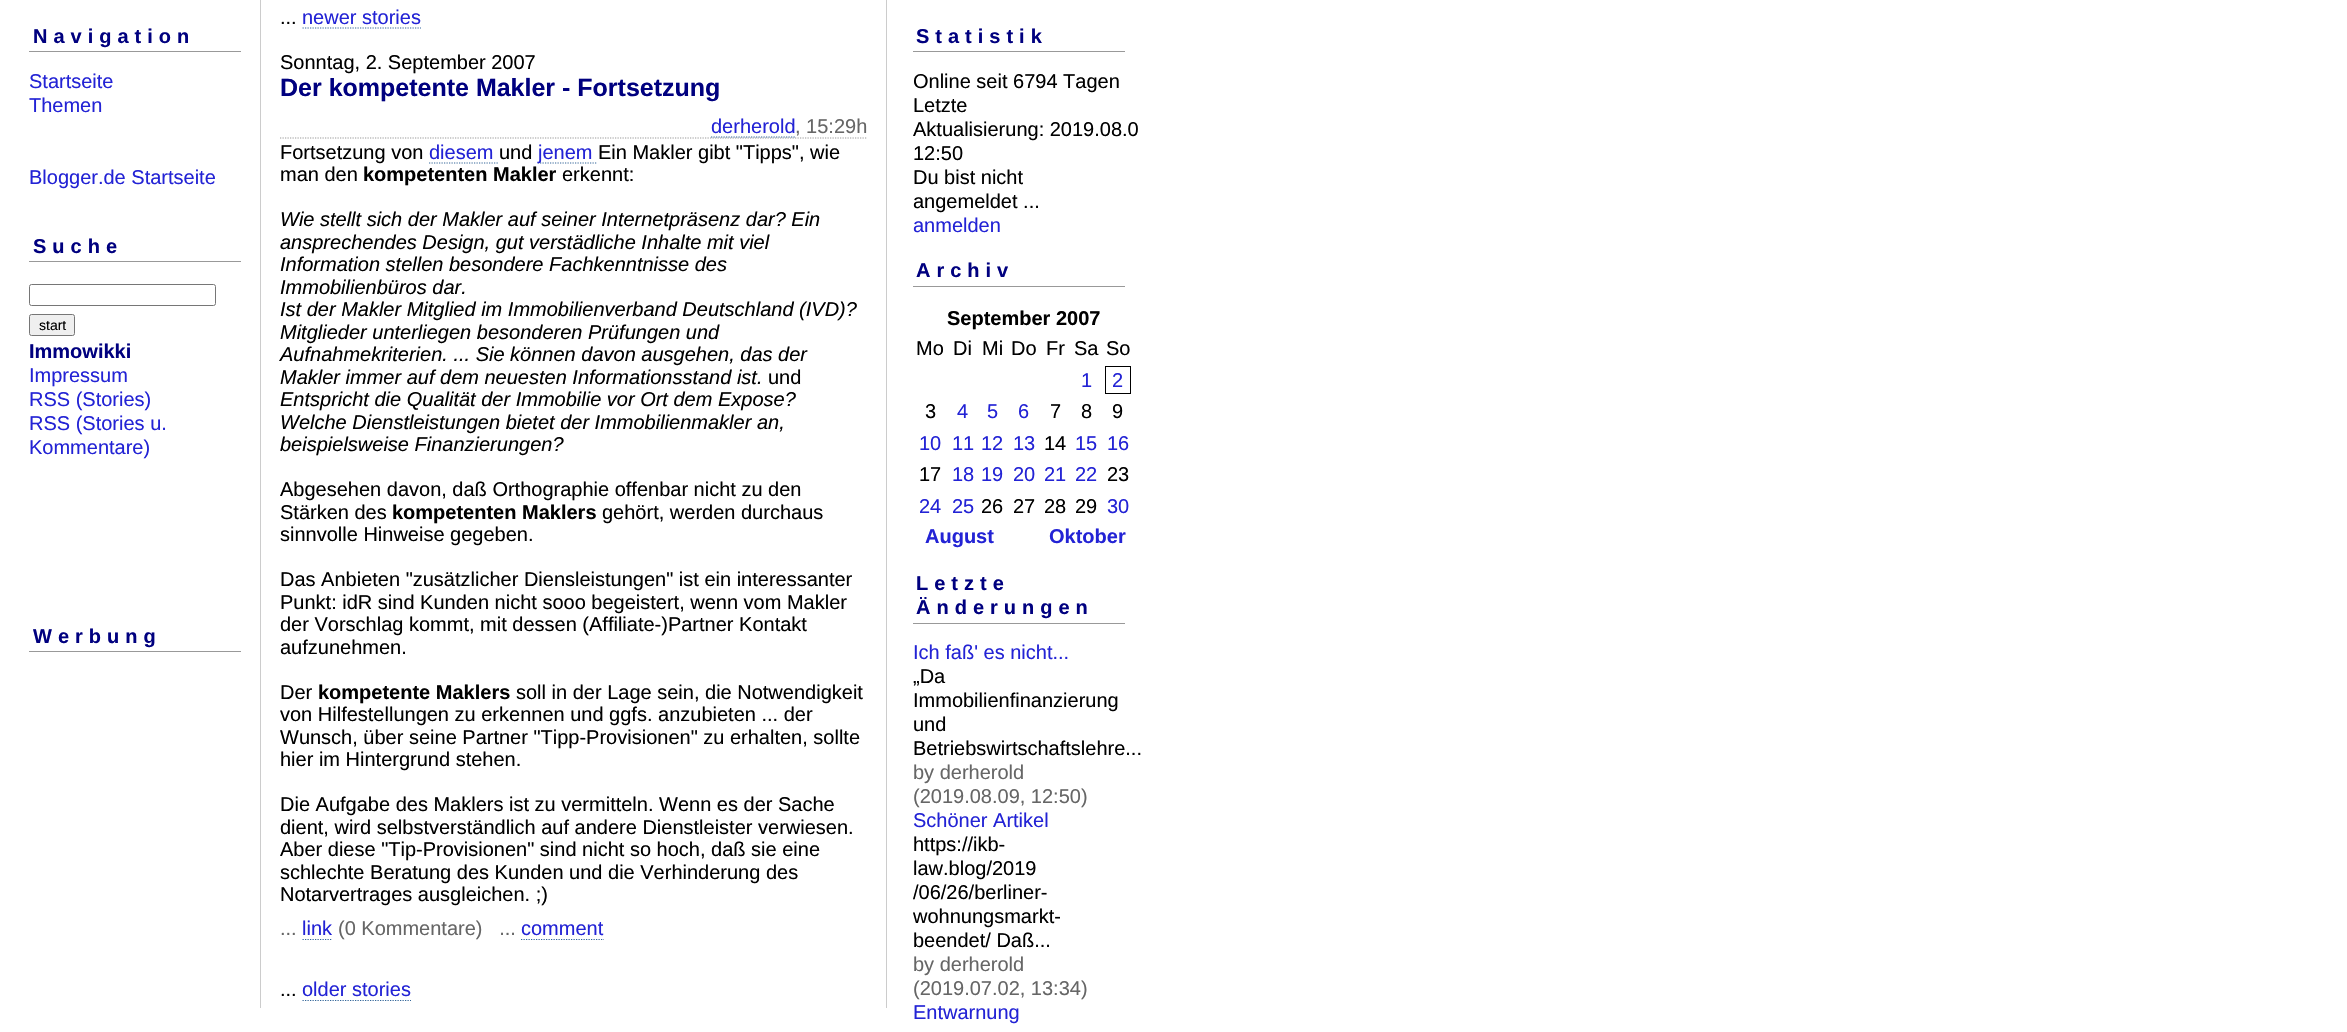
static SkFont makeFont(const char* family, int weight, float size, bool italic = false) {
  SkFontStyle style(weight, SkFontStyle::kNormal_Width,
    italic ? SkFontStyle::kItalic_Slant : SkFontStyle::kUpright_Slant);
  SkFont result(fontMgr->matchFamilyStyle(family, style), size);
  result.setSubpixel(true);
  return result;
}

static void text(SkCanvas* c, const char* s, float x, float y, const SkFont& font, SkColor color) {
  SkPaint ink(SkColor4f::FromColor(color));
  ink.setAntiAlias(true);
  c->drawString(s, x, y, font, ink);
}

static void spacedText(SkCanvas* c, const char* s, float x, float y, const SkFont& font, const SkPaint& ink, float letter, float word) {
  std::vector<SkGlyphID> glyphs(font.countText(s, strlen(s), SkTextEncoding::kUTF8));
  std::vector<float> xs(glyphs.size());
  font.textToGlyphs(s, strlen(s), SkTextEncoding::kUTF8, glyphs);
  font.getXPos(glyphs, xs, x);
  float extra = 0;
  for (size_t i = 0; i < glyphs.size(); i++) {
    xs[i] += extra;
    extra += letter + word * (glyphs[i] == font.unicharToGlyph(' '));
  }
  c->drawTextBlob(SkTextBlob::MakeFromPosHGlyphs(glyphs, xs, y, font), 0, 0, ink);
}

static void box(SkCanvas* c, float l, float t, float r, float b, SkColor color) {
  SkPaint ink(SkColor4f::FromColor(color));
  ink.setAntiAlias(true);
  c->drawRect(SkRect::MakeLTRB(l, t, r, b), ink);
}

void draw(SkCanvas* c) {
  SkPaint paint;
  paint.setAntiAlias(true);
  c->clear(0xffffffff);
  box(c, 29, 51, 241, 52, 0xff999999);
  SkFont face1 = makeFont("Liberation Sans", 700, 20);
  paint.setColor(0xff00007f);
  spacedText(c, "Navigation", 33, 43, face1, paint, 6, 0);
  SkFont face2 = makeFont("Liberation Sans", 400, 20);
  text(c, "Startseite", 29, 88, face2, 0xff2323d5);
  text(c, "Themen", 29, 112, face2, 0xff2323d5);
  text(c, "Blogger.de Startseite", 29, 184, face2, 0xff2323d5);
  box(c, 29, 261, 241, 262, 0xff999999);
  spacedText(c, "Suche", 33, 253, face1, paint, 6, 0);
  paint.setStyle(SkPaint::kStroke_Style);
  paint.setStrokeWidth(1);
  paint.setColor(0xff767676);
  c->drawRoundRect(SkRect::MakeLTRB(29.5f, 284.5f, 215.5f, 305.5f), 2, 2, paint);
  paint.setStyle(SkPaint::kFill_Style);
  paint.setColor(0xffefefef);
  c->drawRoundRect(SkRect::MakeLTRB(29.5f, 314.5f, 74.5f, 335.5f), 2, 2, paint);
  paint.setStyle(SkPaint::kStroke_Style);
  paint.setColor(0xff767676);
  c->drawRoundRect(SkRect::MakeLTRB(29.5f, 314.5f, 74.5f, 335.5f), 2, 2, paint);
  SkFont face3 = makeFont("Liberation Sans", 400, 14);
  text(c, "start", 39, 330, face3, 0xff000000);
  text(c, "Immowikki", 29, 358, face1, 0xff00007f);
  text(c, "Impressum", 29, 382, face2, 0xff2323d5);
  text(c, "RSS (Stories)", 29, 406, face2, 0xff2323d5);
  text(c, "RSS (Stories u.", 29, 430, face2, 0xff2323d5);
  text(c, "Kommentare)", 29, 454, face2, 0xff2323d5);
  box(c, 29, 651, 241, 652, 0xff999999);
  paint.setStyle(SkPaint::kFill_Style);
  paint.setColor(0xff00007f);
  spacedText(c, "Werbung", 33, 643, face1, paint, 6, 0);
  box(c, 886, 0, 887, 1008, 0xffcccccc);
  box(c, 260, 0, 261, 1008, 0xffcccccc);
  text(c, "...", 280, 24, face2, 0xff000000);
  text(c, "newer stories", 302, 24, face2, 0xff2323d5);
  paint.setStyle(SkPaint::kStroke_Style);
  paint.setStrokeWidth(1.2f);
  paint.setColor(0xff336699);
  paint.setPathEffect(SkDashPathEffect::Make({{1.25f, 1.25f}}, 0));
  c->drawPath(SkPathBuilder().moveTo(302.5f, 28).lineTo(421, 28).detach(), paint);
  paint.setPathEffect(nullptr);
  text(c, "Sonntag, 2. September 2007", 280, 69, face2, 0xff000000);
  SkFont face4 = makeFont("Liberation Sans", 700, 25);
  text(c, "Der kompetente Makler - Fortsetzung", 280, 96, face4, 0xff00007f);
  paint.setColor(0xff999999);
  paint.setPathEffect(SkDashPathEffect::Make({{1.25f, 1.25f}}, 0));
  c->drawPath(SkPathBuilder().moveTo(280, 138).lineTo(867.5f, 138).detach(), paint);
  paint.setPathEffect(nullptr);
  text(c, "derherold", 711, 133, face2, 0xff2323d5);
  paint.setColor(0xff336699);
  paint.setPathEffect(SkDashPathEffect::Make({{1.25f, 1.25f}}, 0));
  c->drawPath(SkPathBuilder().moveTo(711, 137).lineTo(795, 137).detach(), paint);
  paint.setPathEffect(nullptr);
  text(c, ", 15:29h", 795, 133, face2, 0xff666666);
  text(c, "Fortsetzung von", 280, 159, face2, 0xff000000);
  text(c, "diesem", 429, 159, face2, 0xff2323d5);
  paint.setPathEffect(SkDashPathEffect::Make({{1.25f, 1.25f}}, 0));
  c->drawPath(SkPathBuilder().moveTo(429, 163).lineTo(499, 163).detach(), paint);
  paint.setPathEffect(nullptr);
  text(c, "und", 499, 159, face2, 0xff000000);
  paint.setPathEffect(SkDashPathEffect::Make({{1.25f, 1.25f}}, 0));
  c->drawPath(SkPathBuilder().moveTo(537.5f, 163).lineTo(597.5f, 163).detach(), paint);
  paint.setPathEffect(nullptr);
  text(c, "jenem", 538, 159, face2, 0xff2323d5);
  text(c, "Ein Makler gibt \"Tipps\", wie", 598, 159, face2, 0xff000000);
  text(c, "man den", 280, 181, face2, 0xff000000);
  text(c, "kompetenten Makler", 363, 181, face1, 0xff000000);
  text(c, "erkennt:", 562, 181, face2, 0xff000000);
  SkFont face5 = makeFont("Liberation Sans", 400, 20, true);
  text(c, "Wie stellt sich der Makler auf seiner Internetpräsenz dar? Ein", 280, 226, face5, 0xff000000);
  text(c, "ansprechendes Design, gut verstädliche Inhalte mit viel", 280, 249, face5, 0xff000000);
  text(c, "Information stellen besondere Fachkenntnisse des", 280, 271, face5, 0xff000000);
  text(c, "Immobilienbüros dar.", 280, 294, face5, 0xff000000);
  text(c, "Ist der Makler Mitglied im Immobilienverband Deutschland (IVD)?", 280, 316, face5, 0xff000000);
  text(c, "Mitglieder unterliegen besonderen Prüfungen und", 280, 339, face5, 0xff000000);
  text(c, "Aufnahmekriterien. ... Sie können davon ausgehen, das der", 280, 361, face5, 0xff000000);
  text(c, "Makler immer auf dem neuesten Informationsstand ist.", 280, 384, face5, 0xff000000);
  text(c, "und", 768, 384, face2, 0xff000000);
  text(c, "Entspricht die Qualität der Immobilie vor Ort dem Expose?", 280, 406, face5, 0xff000000);
  text(c, "Welche Dienstleistungen bietet der Immobilienmakler an,", 280, 429, face5, 0xff000000);
  text(c, "beispielsweise Finanzierungen?", 280, 451, face5, 0xff000000);
  text(c, "Abgesehen davon, daß Orthographie offenbar nicht zu den", 280, 496, face2, 0xff000000);
  text(c, "Stärken des", 280, 519, face2, 0xff000000);
  text(c, "kompetenten Maklers", 392, 519, face1, 0xff000000);
  text(c, "gehört, werden durchaus", 602, 519, face2, 0xff000000);
  text(c, "sinnvolle Hinweise gegeben.", 280, 541, face2, 0xff000000);
  text(c, "Das Anbieten \"zusätzlicher Diensleistungen\" ist ein interessanter", 280, 586, face2, 0xff000000);
  text(c, "Punkt: idR sind Kunden nicht sooo begeistert, wenn vom Makler", 280, 609, face2, 0xff000000);
  text(c, "der Vorschlag kommt, mit dessen (Affiliate-)Partner Kontakt", 280, 631, face2, 0xff000000);
  text(c, "aufzunehmen.", 280, 654, face2, 0xff000000);
  text(c, "Der", 280, 699, face2, 0xff000000);
  text(c, "kompetente Maklers", 318, 699, face1, 0xff000000);
  text(c, "soll in der Lage sein, die Notwendigkeit", 516, 699, face2, 0xff000000);
  text(c, "von Hilfestellungen zu erkennen und ggfs. anzubieten ... der", 280, 721, face2, 0xff000000);
  text(c, "Wunsch, über seine Partner \"Tipp-Provisionen\" zu erhalten, sollte", 280, 744, face2, 0xff000000);
  text(c, "hier im Hintergrund stehen.", 280, 766, face2, 0xff000000);
  text(c, "Die Aufgabe des Maklers ist zu vermitteln. Wenn es der Sache", 280, 811, face2, 0xff000000);
  text(c, "dient, wird selbstverständlich auf andere Dienstleister verwiesen.", 280, 834, face2, 0xff000000);
  text(c, "Aber diese \"Tip-Provisionen\" sind nicht so hoch, daß sie eine", 280, 856, face2, 0xff000000);
  text(c, "schlechte Beratung des Kunden und die Verhinderung des", 280, 879, face2, 0xff000000);
  text(c, "Notarvertrages ausgleichen. ;)", 280, 901, face2, 0xff000000);
  text(c, "...", 280, 935, face2, 0xff666666);
  text(c, "link", 302, 935, face2, 0xff2323d5);
  paint.setPathEffect(SkDashPathEffect::Make({{1.25f, 1.25f}}, 0));
  c->drawPath(SkPathBuilder().moveTo(302.5f, 939.5f).lineTo(332.5f, 939.5f).detach(), paint);
  paint.setPathEffect(nullptr);
  text(c, "(0 Kommentare)   ...", 338, 935, face2, 0xff666666);
  text(c, "comment", 521, 935, face2, 0xff2323d5);
  paint.setPathEffect(SkDashPathEffect::Make({{1.25f, 1.25f}}, 0));
  c->drawPath(SkPathBuilder().moveTo(521, 939.5f).lineTo(604, 939.5f).detach(), paint);
  paint.setPathEffect(nullptr);
  text(c, "...", 280, 996, face2, 0xff000000);
  text(c, "older stories", 302, 996, face2, 0xff2323d5);
  paint.setPathEffect(SkDashPathEffect::Make({{1.25f, 1.25f}}, 0));
  c->drawPath(SkPathBuilder().moveTo(302.5f, 1000.5f).lineTo(411, 1000.5f).detach(), paint);
  paint.setPathEffect(nullptr);
  box(c, 913, 51, 1125, 52, 0xff999999);
  paint.setStyle(SkPaint::kFill_Style);
  paint.setColor(0xff00007f);
  spacedText(c, "Statistik", 916, 43, face1, paint, 6, 0);
  text(c, "Online seit 6794 Tagen", 913, 88, face2, 0xff000000);
  text(c, "Letzte", 913, 112, face2, 0xff000000);
  text(c, "Aktualisierung: 2019.08.0", 913, 136, face2, 0xff000000);
  text(c, "12:50", 913, 160, face2, 0xff000000);
  text(c, "Du bist nicht", 913, 184, face2, 0xff000000);
  text(c, "angemeldet ...", 913, 208, face2, 0xff000000);
  text(c, "anmelden", 913, 232, face2, 0xff2323d5);
  box(c, 913, 286, 1125, 287, 0xff999999);
  spacedText(c, "Archiv", 916, 277, face1, paint, 6, 0);
  text(c, "September 2007", 947, 325, face1, 0xff000000);
  text(c, "Mo", 916, 355, face2, 0xff000000);
  text(c, "Di", 953, 355, face2, 0xff000000);
  text(c, "Mi", 982, 355, face2, 0xff000000);
  text(c, "Do", 1011, 355, face2, 0xff000000);
  text(c, "Fr", 1046, 355, face2, 0xff000000);
  text(c, "Sa", 1074, 355, face2, 0xff000000);
  text(c, "So", 1106, 355, face2, 0xff000000);
  text(c, "1", 1081, 387, face2, 0xff2323d5);
  paint.setStyle(SkPaint::kStroke_Style);
  paint.setStrokeWidth(1);
  paint.setColor(0xff000000);
  c->drawRect(SkRect::MakeLTRB(1105.5f, 366.5f, 1130.5f, 393.5f), paint);
  text(c, "2", 1112, 387, face2, 0xff2323d5);
  text(c, "3", 925, 418, face2, 0xff000000);
  text(c, "4", 957, 418, face2, 0xff2323d5);
  text(c, "5", 987, 418, face2, 0xff2323d5);
  text(c, "6", 1018, 418, face2, 0xff2323d5);
  text(c, "7", 1050, 418, face2, 0xff000000);
  text(c, "8", 1081, 418, face2, 0xff000000);
  text(c, "9", 1112, 418, face2, 0xff000000);
  text(c, "10", 919, 450, face2, 0xff2323d5);
  text(c, "11", 952, 450, face2, 0xff2323d5);
  text(c, "12", 981, 450, face2, 0xff2323d5);
  text(c, "13", 1013, 450, face2, 0xff2323d5);
  text(c, "14", 1044, 450, face2, 0xff000000);
  text(c, "15", 1075, 450, face2, 0xff2323d5);
  text(c, "16", 1107, 450, face2, 0xff2323d5);
  text(c, "17", 919, 481, face2, 0xff000000);
  text(c, "18", 952, 481, face2, 0xff2323d5);
  text(c, "19", 981, 481, face2, 0xff2323d5);
  text(c, "20", 1013, 481, face2, 0xff2323d5);
  text(c, "21", 1044, 481, face2, 0xff2323d5);
  text(c, "22", 1075, 481, face2, 0xff2323d5);
  text(c, "23", 1107, 481, face2, 0xff000000);
  text(c, "24", 919, 513, face2, 0xff2323d5);
  text(c, "25", 952, 513, face2, 0xff2323d5);
  text(c, "26", 981, 513, face2, 0xff000000);
  text(c, "27", 1013, 513, face2, 0xff000000);
  text(c, "28", 1044, 513, face2, 0xff000000);
  text(c, "29", 1075, 513, face2, 0xff000000);
  text(c, "30", 1107, 513, face2, 0xff2323d5);
  text(c, "August", 925, 543, face1, 0xff2323d5);
  text(c, "Oktober", 1049, 543, face1, 0xff2323d5);
  box(c, 913, 623, 1125, 624, 0xff999999);
  paint.setStyle(SkPaint::kFill_Style);
  paint.setColor(0xff00007f);
  spacedText(c, "Letzte", 916, 590, face1, paint, 6, 0);
  spacedText(c, "Änderungen", 916, 614, face1, paint, 6, 0);
  text(c, "Ich faß' es nicht...", 913, 659, face2, 0xff2323d5);
  text(c, "„Da", 913, 683, face2, 0xff000000);
  text(c, "Immobilienfinanzierung", 913, 707, face2, 0xff000000);
  text(c, "und", 913, 731, face2, 0xff000000);
  text(c, "Betriebswirtschaftslehre...", 913, 755, face2, 0xff000000);
  text(c, "by derherold", 913, 779, face2, 0xff666666);
  text(c, "(2019.08.09, 12:50)", 913, 803, face2, 0xff666666);
  text(c, "Schöner Artikel", 913, 827, face2, 0xff2323d5);
  text(c, "https://ikb-", 913, 851, face2, 0xff000000);
  text(c, "law.blog/2019", 913, 875, face2, 0xff000000);
  text(c, "/06/26/berliner-", 913, 899, face2, 0xff000000);
  text(c, "wohnungsmarkt-", 913, 923, face2, 0xff000000);
  text(c, "beendet/ Daß...", 913, 947, face2, 0xff000000);
  text(c, "by derherold", 913, 971, face2, 0xff666666);
  text(c, "(2019.07.02, 13:34)", 913, 995, face2, 0xff666666);
  text(c, "Entwarnung", 913, 1019, face2, 0xff2323d5);
}
